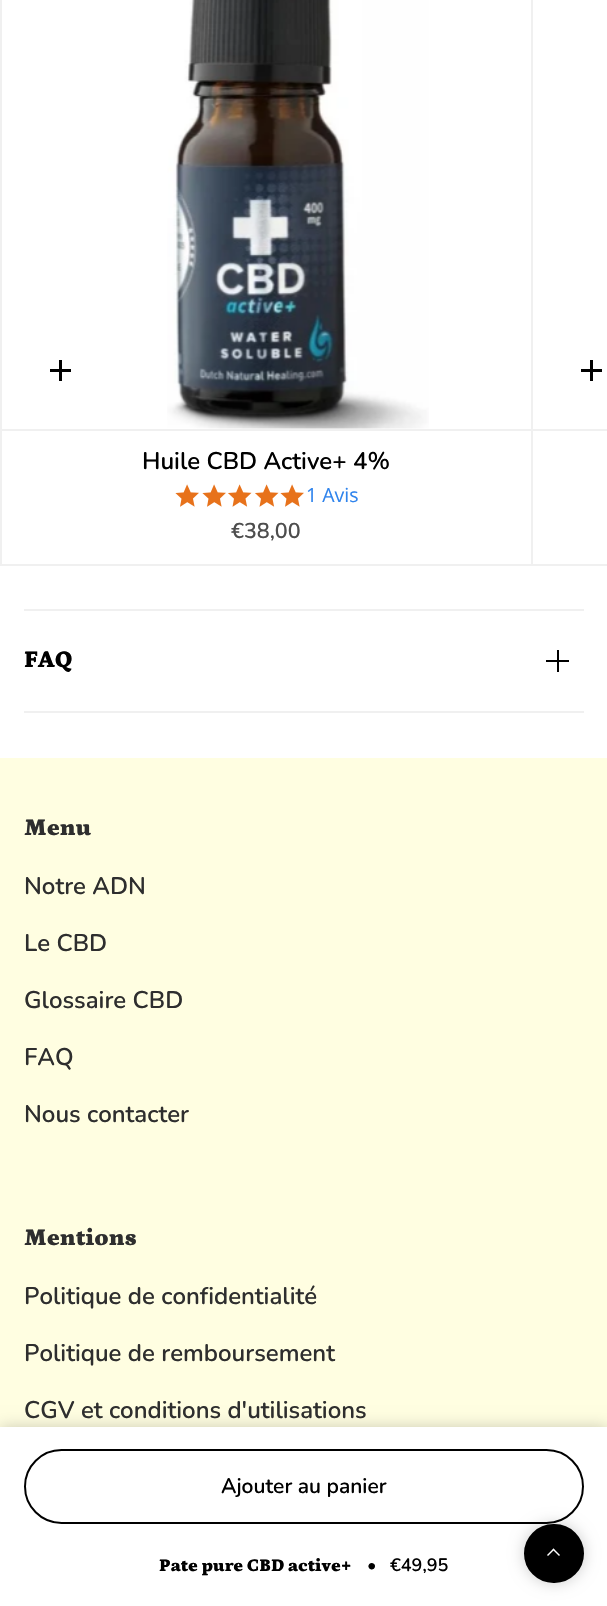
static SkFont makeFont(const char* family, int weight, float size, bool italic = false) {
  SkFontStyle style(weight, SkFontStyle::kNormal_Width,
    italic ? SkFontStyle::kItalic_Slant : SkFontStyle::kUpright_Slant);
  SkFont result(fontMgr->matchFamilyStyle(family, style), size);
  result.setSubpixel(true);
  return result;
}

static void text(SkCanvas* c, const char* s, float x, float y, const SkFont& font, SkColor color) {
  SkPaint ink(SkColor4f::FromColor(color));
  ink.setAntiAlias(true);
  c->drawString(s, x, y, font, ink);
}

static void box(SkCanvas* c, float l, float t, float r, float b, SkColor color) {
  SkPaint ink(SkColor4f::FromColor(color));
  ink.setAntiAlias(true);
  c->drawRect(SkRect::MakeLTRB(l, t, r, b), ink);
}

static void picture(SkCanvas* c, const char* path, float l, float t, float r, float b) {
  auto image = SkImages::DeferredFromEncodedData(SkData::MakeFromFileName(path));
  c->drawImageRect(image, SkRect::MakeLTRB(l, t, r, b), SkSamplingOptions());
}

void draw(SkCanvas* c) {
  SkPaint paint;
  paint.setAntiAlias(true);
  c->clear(0xffffffff);
  box(c, 533, 429, 607, 431, 0xfff0f0f0);
  box(c, 581, 369, 602, 372, 0xff000000);
  box(c, 590, 360, 593, 381, 0xff000000);
  box(c, 531, 0, 533, 566, 0xfff0f0f0);
  box(c, 2, 564, 607, 566, 0xfff0f0f0);
  box(c, 0, 0, 2, 566, 0xfff0f0f0);
  box(c, 2, 429, 531, 431, 0xfff0f0f0);
  box(c, 50, 369, 71, 372, 0xff000000);
  box(c, 59, 360, 62, 381, 0xff000000);
  picture(c, "img_01.png", 167, 0, 429, 429);
  SkFont face1 = makeFont("Nunito", 600, 24);
  text(c, "Huile CBD Active+ 4%", 142, 469, face1, 0xff000000);
  picture(c, "img_02.png", 175, 484, 199, 507);
  picture(c, "img_02.png", 202, 484, 226, 507);
  picture(c, "img_03.png", 228, 484, 252, 507);
  picture(c, "img_03.png", 255, 484, 279, 507);
  picture(c, "img_02.png", 280, 484, 304, 507);
  SkFont face2 = makeFont("Open Sans", 400, 19.5f);
  text(c, "1 Avis", 306, 502, face2, 0xff2f84ed);
  SkFont face3 = makeFont("Nunito", 600, 21.5f);
  text(c, "€38,00", 231, 538, face3, 0xff4d4d4d);
  box(c, 24, 609, 584, 611, 0xfff0f0f0);
  box(c, 24, 711, 584, 713, 0xfff0f0f0);
  SkFont face4 = makeFont("Petrona", 900, 24);
  text(c, "FAQ", 24, 667, face4, 0xff000000);
  box(c, 546, 660, 569, 662, 0xff000000);
  box(c, 557, 650, 559, 672, 0xff000000);
  box(c, 0, 758, 607, 1427, 0xfffffee1);
  paint.setColor(0x33000000);
  paint.setMaskFilter(SkMaskFilter::MakeBlur(kNormal_SkBlurStyle, 7.5f));
  c->drawRect(SkRect::MakeLTRB(0, 1427, 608, 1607), paint);
  paint.setMaskFilter(nullptr);
  box(c, 0, 1427, 607, 1606, 0xffffffff);
  paint.setStyle(SkPaint::kStroke_Style);
  paint.setStrokeWidth(2);
  paint.setColor(0xff000000);
  c->drawRoundRect(SkRect::MakeLTRB(25, 1450, 583, 1523), 36.5f, 36.5f, paint);
  SkFont face5 = makeFont("Nunito", 600, 21);
  text(c, "Ajouter au panier", 221, 1493, face5, 0xff000000);
  SkFont face6 = makeFont("Petrona", 900, 18);
  text(c, "Pate pure CBD active+", 159, 1571, face6, 0xff000000);
  SkFont face7 = makeFont("Nunito", 600, 18);
  text(c, "•", 367, 1571, face7, 0xff000000);
  text(c, "€49,95", 390, 1571, face7, 0xff000000);
  text(c, "Menu", 24, 835, face4, 0xff2e2e2e);
  text(c, "Notre ADN", 24, 894, face1, 0xff2e2e2e);
  text(c, "Le CBD", 24, 951, face1, 0xff2e2e2e);
  text(c, "Glossaire CBD", 24, 1008, face1, 0xff2e2e2e);
  text(c, "FAQ", 24, 1065, face1, 0xff2e2e2e);
  text(c, "Nous contacter", 24, 1122, face1, 0xff2e2e2e);
  text(c, "Mentions", 24, 1245, face4, 0xff2e2e2e);
  text(c, "Politique de confidentialité", 24, 1304, face1, 0xff2e2e2e);
  text(c, "Politique de remboursement", 24, 1361, face1, 0xff2e2e2e);
  text(c, "CGV et conditions d'utilisations", 24, 1418, face1, 0xff2e2e2e);
  paint.setStyle(SkPaint::kFill_Style);
  paint.setColor(0x33000000);
  paint.setMaskFilter(SkMaskFilter::MakeBlur(kNormal_SkBlurStyle, 7.5f));
  c->drawRoundRect(SkRect::MakeLTRB(524, 1524, 584, 1583), 29.5f, 29.5f, paint);
  paint.setMaskFilter(nullptr);
  paint.setColor(0xff000000);
  c->drawRoundRect(SkRect::MakeLTRB(525, 1525, 583, 1582), 28.5f, 28.5f, paint);
  paint.setStyle(SkPaint::kStroke_Style);
  c->drawRoundRect(SkRect::MakeLTRB(525, 1525, 583, 1582), 28.5f, 28.5f, paint);
  paint.setStyle(SkPaint::kFill_Style);
  paint.setColor(0xffffffff);
  c->drawPath(SkPathBuilder().moveTo(554.5f, 1549.5f).lineTo(548, 1556).lineTo(547, 1555).lineTo(553.5f, 1548.5f).close().detach(), paint);
  c->drawPath(SkPathBuilder().moveTo(560, 1555).lineTo(559, 1556).lineTo(552.5f, 1549.5f).lineTo(553.5f, 1548.5f).close().detach(), paint);
}
